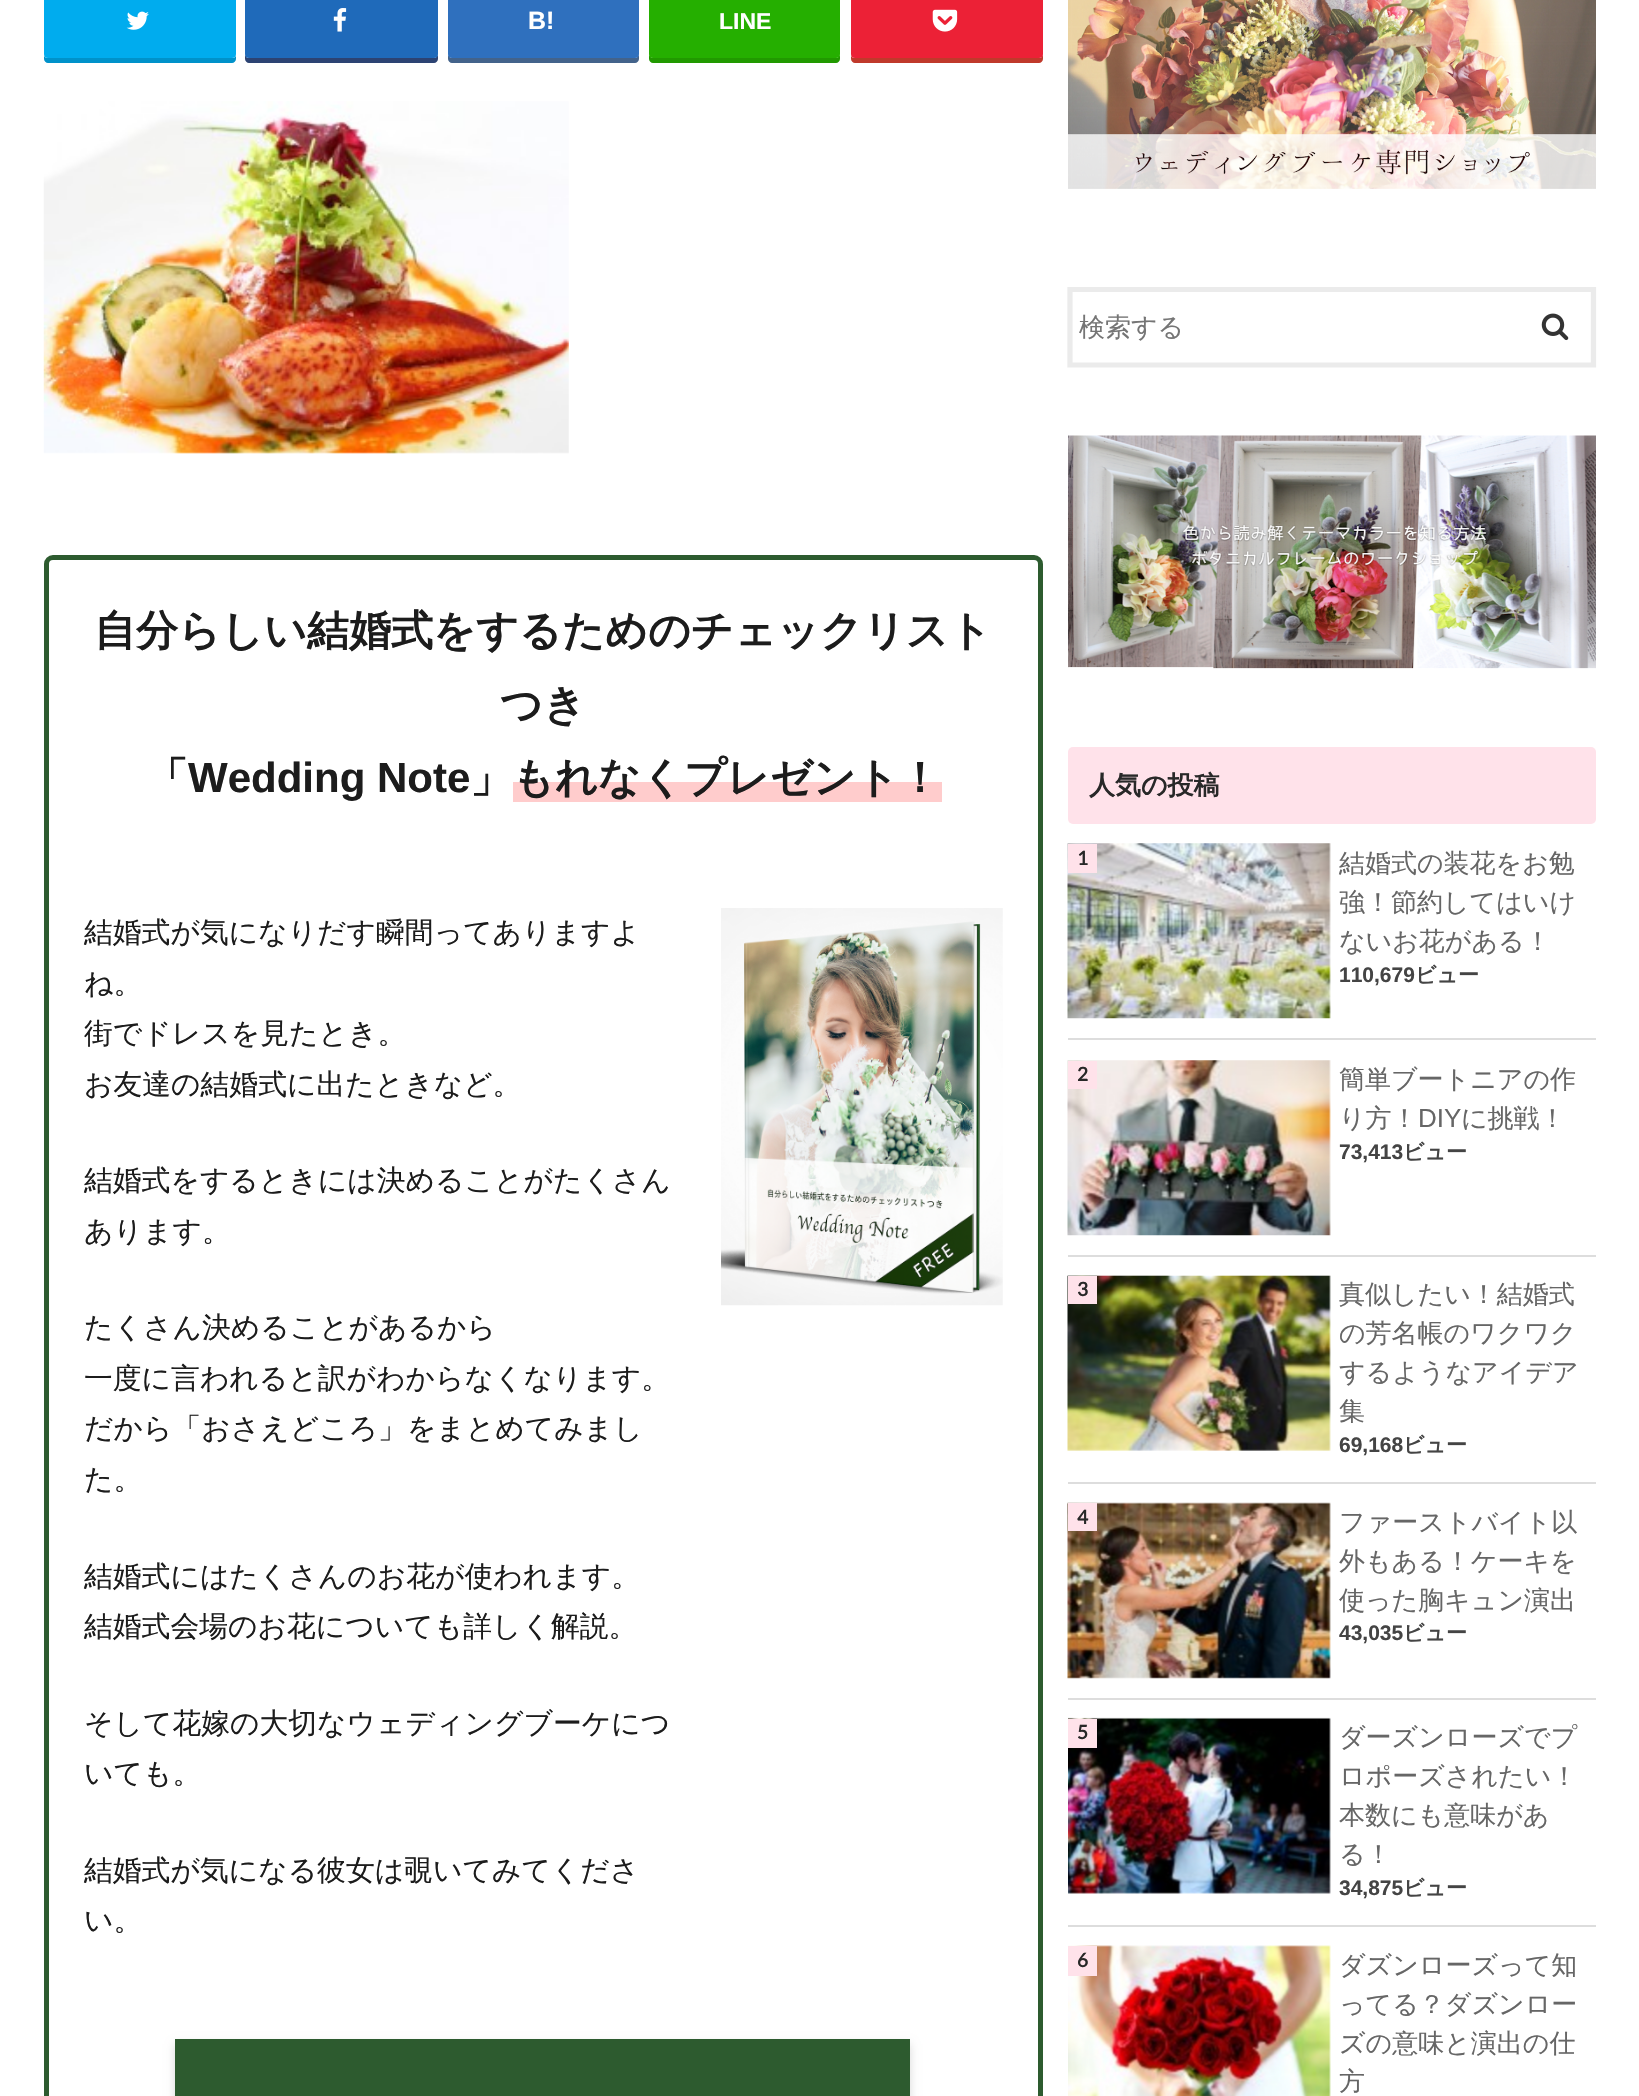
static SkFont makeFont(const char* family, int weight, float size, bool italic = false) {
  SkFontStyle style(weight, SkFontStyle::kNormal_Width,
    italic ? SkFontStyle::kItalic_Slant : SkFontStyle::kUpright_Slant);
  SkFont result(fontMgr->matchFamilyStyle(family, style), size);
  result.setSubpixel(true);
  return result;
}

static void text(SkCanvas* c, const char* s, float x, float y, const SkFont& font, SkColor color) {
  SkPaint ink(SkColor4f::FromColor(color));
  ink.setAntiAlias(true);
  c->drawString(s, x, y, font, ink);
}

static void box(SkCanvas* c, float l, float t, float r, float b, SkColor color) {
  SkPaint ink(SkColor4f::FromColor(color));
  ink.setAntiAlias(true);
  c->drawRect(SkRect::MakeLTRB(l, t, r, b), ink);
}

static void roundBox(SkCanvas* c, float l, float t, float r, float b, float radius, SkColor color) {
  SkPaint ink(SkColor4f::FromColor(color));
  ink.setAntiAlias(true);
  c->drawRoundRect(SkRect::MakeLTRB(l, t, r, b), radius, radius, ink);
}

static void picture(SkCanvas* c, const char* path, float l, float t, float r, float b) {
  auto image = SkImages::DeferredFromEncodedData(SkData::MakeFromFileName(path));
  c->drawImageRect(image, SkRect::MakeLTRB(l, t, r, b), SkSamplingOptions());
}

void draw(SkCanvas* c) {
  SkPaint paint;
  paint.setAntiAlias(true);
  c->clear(0xffffffff);
  paint.setColor(0xff0092ca);
  c->drawPath(SkPathBuilder().moveTo(44, 56).lineTo(44, 59).cubicTo(44, 61, 46, 63, 48, 63).lineTo(232, 63).cubicTo(234, 63, 236, 61, 236, 59).lineTo(236, 56).cubicTo(235, 57, 234, 58, 233, 58).lineTo(47, 58).cubicTo(46, 58, 45, 57, 44, 56).close().detach(), paint);
  roundBox(c, 44, -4, 236, 58, 4, 0xff00acee);
  picture(c, "img_01.png", 126, 11, 149, 30);
  paint.setColor(0xff2c4373);
  c->drawPath(SkPathBuilder().moveTo(245, 54).lineTo(245, 59).cubicTo(245, 61, 247, 63, 249, 63).lineTo(434, 63).cubicTo(436, 63, 438, 61, 438, 59).lineTo(438, -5).lineTo(438, -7).lineTo(438, 54).cubicTo(438, 56, 436, 58, 434, 58).lineTo(248, 58).cubicTo(247, 58, 245, 56, 245, 54).close().detach(), paint);
  roundBox(c, 245, -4, 438, 58, 4, 0xff1f6aba);
  picture(c, "img_02.png", 333, 8, 347, 32);
  paint.setColor(0xff43638b);
  c->drawPath(SkPathBuilder().moveTo(448, 54).lineTo(448, 59).cubicTo(448, 61, 450, 63, 452, 63).lineTo(635, 63).cubicTo(637, 63, 639, 61, 639, 59).lineTo(639, -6).lineTo(639, 54).cubicTo(639, 56, 637, 58, 635, 58).lineTo(452, 58).cubicTo(450, 58, 448, 56, 448, 54).close().detach(), paint);
  roundBox(c, 448, -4, 639, 58, 4, 0xff2f70be);
  SkFont face1 = makeFont("Liberation Sans", 700, 25);
  text(c, "B!", 528, 29, face1, 0xffffffff);
  paint.setColor(0xff219900);
  c->drawPath(SkPathBuilder().moveTo(649, -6).lineTo(649, 59).cubicTo(649, 61, 651, 63, 653, 63).lineTo(836, 63).cubicTo(838, 63, 840, 61, 840, 59).lineTo(840, 54).cubicTo(840, 56, 838, 58, 836, 58).lineTo(653, 58).cubicTo(651, 58, 649, 56, 649, 54).close().detach(), paint);
  roundBox(c, 649, -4, 840, 58, 4, 0xff25af00);
  SkFont face2 = makeFont("Liberation Sans", 700, 23);
  text(c, "LINE", 719, 29, face2, 0xffffffff);
  paint.setColor(0xffc0392b);
  c->drawPath(SkPathBuilder().moveTo(851, 56).lineTo(851, 59).cubicTo(851, 61, 853, 63, 855, 63).lineTo(1039, 63).cubicTo(1041, 63, 1043, 61, 1043, 59).lineTo(1043, 54).cubicTo(1043, 56, 1041, 58, 1040, 58).lineTo(854, 58).cubicTo(853, 58, 852, 57, 851, 56).close().detach(), paint);
  roundBox(c, 851, -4, 1043, 58, 4, 0xffec2136);
  picture(c, "img_03.png", 932, 9, 958, 32);
  picture(c, "img_04.png", 43, 101, 569, 454);
  paint.setStyle(SkPaint::kStroke_Style);
  paint.setStrokeWidth(5);
  paint.setColor(0xff2d5b2f);
  c->drawRoundRect(SkRect::MakeLTRB(46.5f, 557.5f, 1040.5f, 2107.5f), 6.5f, 6.5f, paint);
  SkFont face3 = makeFont("WenQuanYi Zen Hei", 700, 42);
  text(c, "自分らしい結婚式をするためのチェックリスト", 94, 645, face3, 0xff1c1c1c);
  text(c, "つき", 500, 719, face3, 0xff1c1c1c);
  text(c, "「", 146, 792, face3, 0xff1c1c1c);
  SkFont face4 = makeFont("Liberation Sans", 700, 42);
  text(c, "Wedding Note", 188, 792, face4, 0xff1c1c1c);
  text(c, "」", 470, 792, face3, 0xff1c1c1c);
  box(c, 513, 782, 942, 802, 0xffffcccc);
  text(c, "もれなくプレゼント！", 512, 792, face3, 0xff1c1c1c);
  SkFont face5 = makeFont("WenQuanYi Zen Hei", 500, 28.8f);
  text(c, "結婚式が気になりだす瞬間ってありますよ", 84, 942, face5, 0xff1c1c1c);
  text(c, "ね。", 84, 993, face5, 0xff1c1c1c);
  text(c, "街でドレスを見たとき。", 84, 1043, face5, 0xff1c1c1c);
  text(c, "お友達の結婚式に出たときなど。", 84, 1094, face5, 0xff1c1c1c);
  text(c, "結婚式をするときには決めることがたくさん", 84, 1190, face5, 0xff1c1c1c);
  text(c, "あります。", 84, 1241, face5, 0xff1c1c1c);
  text(c, "たくさん決めることがあるから", 84, 1337, face5, 0xff1c1c1c);
  text(c, "一度に言われると訳がわからなくなります。", 84, 1388, face5, 0xff1c1c1c);
  text(c, "だから「おさえどころ」をまとめてみまし", 84, 1438, face5, 0xff1c1c1c);
  text(c, "た。", 84, 1489, face5, 0xff1c1c1c);
  text(c, "結婚式にはたくさんのお花が使われます。", 84, 1586, face5, 0xff1c1c1c);
  text(c, "結婚式会場のお花についても詳しく解説。", 84, 1636, face5, 0xff1c1c1c);
  text(c, "そして花嫁の大切なウェディングブーケにつ", 84, 1733, face5, 0xff1c1c1c);
  text(c, "いても。", 84, 1783, face5, 0xff1c1c1c);
  text(c, "結婚式が気になる彼女は覗いてみてくださ", 84, 1880, face5, 0xff1c1c1c);
  text(c, "い。", 84, 1930, face5, 0xff1c1c1c);
  picture(c, "img_05.png", 721, 908, 1003, 1306);
  paint.setStyle(SkPaint::kFill_Style);
  paint.setColor(0x26000000);
  paint.setMaskFilter(SkMaskFilter::MakeBlur(kNormal_SkBlurStyle, 4.5f));
  c->drawRect(SkRect::MakeLTRB(175, 2044, 910, 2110), paint);
  paint.setMaskFilter(nullptr);
  box(c, 175, 2039, 910, 2096, 0xff2d5b2f);
  picture(c, "img_06.png", 1068, 0, 1596, 189);
  paint.setStyle(SkPaint::kStroke_Style);
  paint.setStrokeWidth(5.2f);
  paint.setColor(0xffebebeb);
  c->drawPath(SkPathBuilder().moveTo(1070, 289.5f).lineTo(1593.5f, 289.5f).lineTo(1593.5f, 365).lineTo(1070, 365).close().detach(), paint);
  SkFont face6 = makeFont("WenQuanYi Zen Hei", 500, 26);
  text(c, "検索する", 1079, 336, face6, 0xff757575);
  picture(c, "img_07.png", 1541, 313, 1569, 341);
  picture(c, "img_08.png", 1068, 435, 1596, 669);
  roundBox(c, 1068, 747, 1596, 824, 5, 0xffffe2ea);
  SkFont face7 = makeFont("WenQuanYi Zen Hei", 700, 26);
  text(c, "人気の投稿", 1089, 794, face7, 0xff282828);
  box(c, 1068, 1038, 1596, 1040, 0xffdddddd);
  picture(c, "img_09.png", 1067, 843, 1331, 1019);
  box(c, 1068, 844, 1097, 873, 0xffffe2ea);
  SkFont face8 = makeFont("Lato", 700, 19);
  text(c, "1", 1077, 865, face8, 0xff282828);
  text(c, "結婚式の装花をお勉", 1339, 872, face6, 0xff666666);
  text(c, "強！節約してはいけ", 1339, 911, face6, 0xff666666);
  text(c, "ないお花がある！", 1339, 950, face6, 0xff666666);
  SkFont face9 = makeFont("Liberation Sans", 700, 21);
  text(c, "110,679", 1339, 982, face9, 0xff444444);
  SkFont face10 = makeFont("WenQuanYi Zen Hei", 700, 21);
  text(c, "ビュー", 1415, 982, face10, 0xff444444);
  box(c, 1068, 1255, 1596, 1257, 0xffdddddd);
  picture(c, "img_10.png", 1067, 1060, 1331, 1236);
  box(c, 1068, 1061, 1097, 1089, 0xffffe2ea);
  text(c, "2", 1077, 1081, face8, 0xff282828);
  text(c, "簡単ブートニアの作", 1339, 1088, face6, 0xff666666);
  text(c, "り方！", 1339, 1127, face6, 0xff666666);
  SkFont face11 = makeFont("Liberation Sans", 400, 26);
  text(c, "DIY", 1418, 1127, face11, 0xff666666);
  text(c, "に挑戦！", 1461, 1127, face6, 0xff666666);
  text(c, "73,413", 1339, 1159, face9, 0xff444444);
  text(c, "ビュー", 1403, 1159, face10, 0xff444444);
  box(c, 1068, 1482, 1596, 1484, 0xffdddddd);
  picture(c, "img_11.png", 1067, 1275, 1331, 1451);
  box(c, 1068, 1276, 1097, 1304, 0xffffe2ea);
  text(c, "3", 1077, 1296, face8, 0xff282828);
  text(c, "真似したい！結婚式", 1339, 1303, face6, 0xff666666);
  text(c, "の芳名帳のワクワク", 1339, 1342, face6, 0xff666666);
  text(c, "するようなアイデア", 1339, 1381, face6, 0xff666666);
  text(c, "集", 1339, 1420, face6, 0xff666666);
  text(c, "69,168", 1339, 1452, face9, 0xff444444);
  text(c, "ビュー", 1403, 1452, face10, 0xff444444);
  box(c, 1068, 1698, 1596, 1700, 0xffdddddd);
  picture(c, "img_12.png", 1067, 1502, 1331, 1679);
  box(c, 1068, 1503, 1097, 1531, 0xffffe2ea);
  text(c, "4", 1077, 1524, face8, 0xff282828);
  text(c, "ファーストバイト以", 1339, 1531, face6, 0xff666666);
  text(c, "外もある！ケーキを", 1339, 1570, face6, 0xff666666);
  text(c, "使った胸キュン演出", 1339, 1609, face6, 0xff666666);
  text(c, "43,035", 1339, 1640, face9, 0xff444444);
  text(c, "ビュー", 1403, 1640, face10, 0xff444444);
  box(c, 1068, 1925, 1596, 1927, 0xffdddddd);
  picture(c, "img_13.png", 1068, 1717, 1331, 1894);
  box(c, 1068, 1719, 1097, 1748, 0xffffe2ea);
  text(c, "5", 1077, 1739, face8, 0xff282828);
  text(c, "ダーズンローズでプ", 1339, 1746, face6, 0xff666666);
  text(c, "ロポーズされたい！", 1339, 1785, face6, 0xff666666);
  text(c, "本数にも意味があ", 1339, 1824, face6, 0xff666666);
  text(c, "る！", 1339, 1863, face6, 0xff666666);
  text(c, "34,875", 1339, 1895, face9, 0xff444444);
  text(c, "ビュー", 1403, 1895, face10, 0xff444444);
  picture(c, "img_14.png", 1068, 1945, 1331, 2096);
  box(c, 1068, 1946, 1097, 1976, 0xffffe2ea);
  text(c, "6", 1077, 1967, face8, 0xff282828);
  text(c, "ダズンローズって知", 1339, 1974, face6, 0xff666666);
  text(c, "ってる？ダズンロー", 1339, 2013, face6, 0xff666666);
  text(c, "ズの意味と演出の仕", 1339, 2052, face6, 0xff666666);
  text(c, "方", 1339, 2090, face6, 0xff666666);
}
